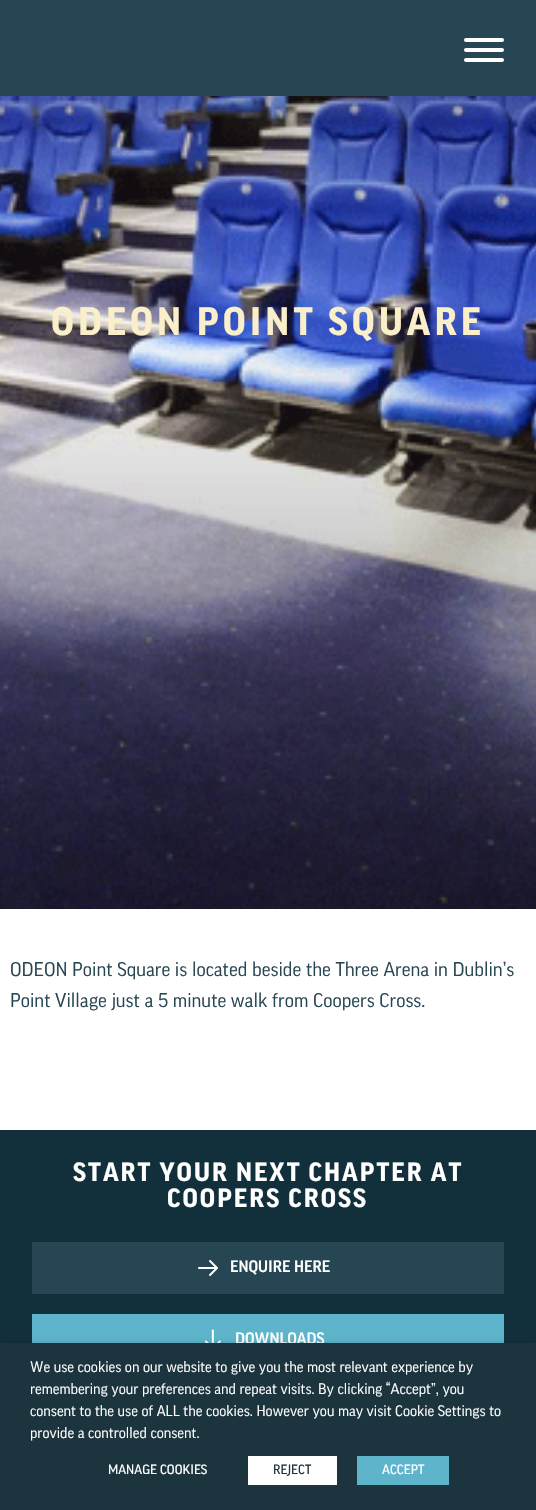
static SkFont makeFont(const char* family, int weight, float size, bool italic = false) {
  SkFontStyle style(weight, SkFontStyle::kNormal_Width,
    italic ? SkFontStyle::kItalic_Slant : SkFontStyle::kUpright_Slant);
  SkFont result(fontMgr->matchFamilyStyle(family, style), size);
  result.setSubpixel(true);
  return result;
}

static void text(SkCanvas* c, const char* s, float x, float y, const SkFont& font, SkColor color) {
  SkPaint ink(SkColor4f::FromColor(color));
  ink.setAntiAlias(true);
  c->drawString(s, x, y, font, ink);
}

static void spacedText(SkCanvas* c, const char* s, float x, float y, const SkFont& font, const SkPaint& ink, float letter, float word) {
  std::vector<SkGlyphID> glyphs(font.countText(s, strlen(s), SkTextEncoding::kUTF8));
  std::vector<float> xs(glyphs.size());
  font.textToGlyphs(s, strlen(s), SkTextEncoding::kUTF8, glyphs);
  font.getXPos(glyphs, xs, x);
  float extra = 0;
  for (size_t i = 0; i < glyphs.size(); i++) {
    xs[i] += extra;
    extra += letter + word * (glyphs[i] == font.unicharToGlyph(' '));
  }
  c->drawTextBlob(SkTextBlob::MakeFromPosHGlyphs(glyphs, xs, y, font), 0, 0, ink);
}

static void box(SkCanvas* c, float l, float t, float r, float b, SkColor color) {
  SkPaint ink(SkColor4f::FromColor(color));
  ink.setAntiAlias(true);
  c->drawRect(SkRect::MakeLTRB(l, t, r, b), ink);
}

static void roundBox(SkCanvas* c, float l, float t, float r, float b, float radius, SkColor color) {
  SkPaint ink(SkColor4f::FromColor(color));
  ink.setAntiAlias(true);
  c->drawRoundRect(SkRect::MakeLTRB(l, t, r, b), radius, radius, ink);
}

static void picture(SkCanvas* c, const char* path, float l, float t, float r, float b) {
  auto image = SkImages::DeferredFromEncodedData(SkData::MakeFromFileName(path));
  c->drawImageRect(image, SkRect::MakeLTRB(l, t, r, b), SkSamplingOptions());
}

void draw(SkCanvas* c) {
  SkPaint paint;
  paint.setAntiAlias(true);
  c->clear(0xffffffff);
  box(c, 0, 0, 536, 96, 0xff274653);
  roundBox(c, 464, 38, 504, 42, 2, 0xffffffff);
  roundBox(c, 464, 48, 504, 52, 2, 0xffffffff);
  roundBox(c, 464, 58, 504, 62, 2, 0xffffffff);
  picture(c, "img_01.png", 0, 96, 536, 909);
  SkFont face1 = makeFont("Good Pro", 700, 38.4f);
  paint.setColor(0xfffaefca);
  spacedText(c, "ODEON POINT SQUARE", 51, 335, face1, paint, 4, 0);
  SkFont face2 = makeFont("Good Pro", 400, 19.2f);
  text(c, "ODEON Point Square is located beside the Three Arena in Dublin’s", 10, 976, face2, 0xff264653);
  text(c, "Point Village just a 5 minute walk from Coopers Cross.", 10, 1007, face2, 0xff264653);
  box(c, 0, 1130, 536, 1343, 0xff12303c);
  SkFont face3 = makeFont("Good Pro", 700, 25.6f);
  paint.setColor(0xffffffff);
  spacedText(c, "START YOUR NEXT CHAPTER AT", 73, 1181, face3, paint, 2, 0);
  spacedText(c, "COOPERS CROSS", 167, 1207, face3, paint, 2, 0);
  box(c, 32, 1242, 504, 1294, 0xff264653);
  picture(c, "img_02.png", 198, 1260, 218, 1276);
  SkFont face4 = makeFont("Good Pro", 500, 16);
  text(c, "ENQUIRE HERE", 230, 1272, face4, 0xffffffff);
  box(c, 32, 1314, 504, 1343, 0xff5eb5cb);
  picture(c, "img_03.png", 204, 1329, 221, 1343);
  text(c, "DOWNLOADS", 235, 1344, face4, 0xffffffff);
  paint.setColor(0x80000000);
  paint.setMaskFilter(SkMaskFilter::MakeBlur(kNormal_SkBlurStyle, 5));
  c->drawRect(SkRect::MakeLTRB(0, 1348, 536, 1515), paint);
  paint.setMaskFilter(nullptr);
  box(c, 0, 1343, 536, 1510, 0xff1c343e);
  SkFont face5 = makeFont("Good Pro", 400, 14.7f);
  text(c, "We use cookies on our website to give you the most relevant experience by", 30, 1372, face5, 0xffffffff);
  text(c, "remembering your preferences and repeat visits. By clicking “Accept”, you", 30, 1394, face5, 0xffffffff);
  text(c, "consent to the use of ALL the cookies. However you may visit Cookie Settings to", 30, 1416, face5, 0xffffffff);
  text(c, "provide a controlled consent.", 30, 1438, face5, 0xffffffff);
  SkFont face6 = makeFont("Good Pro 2", 500, 13);
  text(c, "MANAGE COOKIES", 108, 1474, face6, 0xffffffff);
  box(c, 248, 1456, 337, 1485, 0xffffffff);
  text(c, "REJECT", 273, 1474, face6, 0xff1c343e);
  box(c, 357, 1456, 449, 1485, 0xff5eb5cb);
  text(c, "ACCEPT", 382, 1474, face6, 0xffffffff);
}
